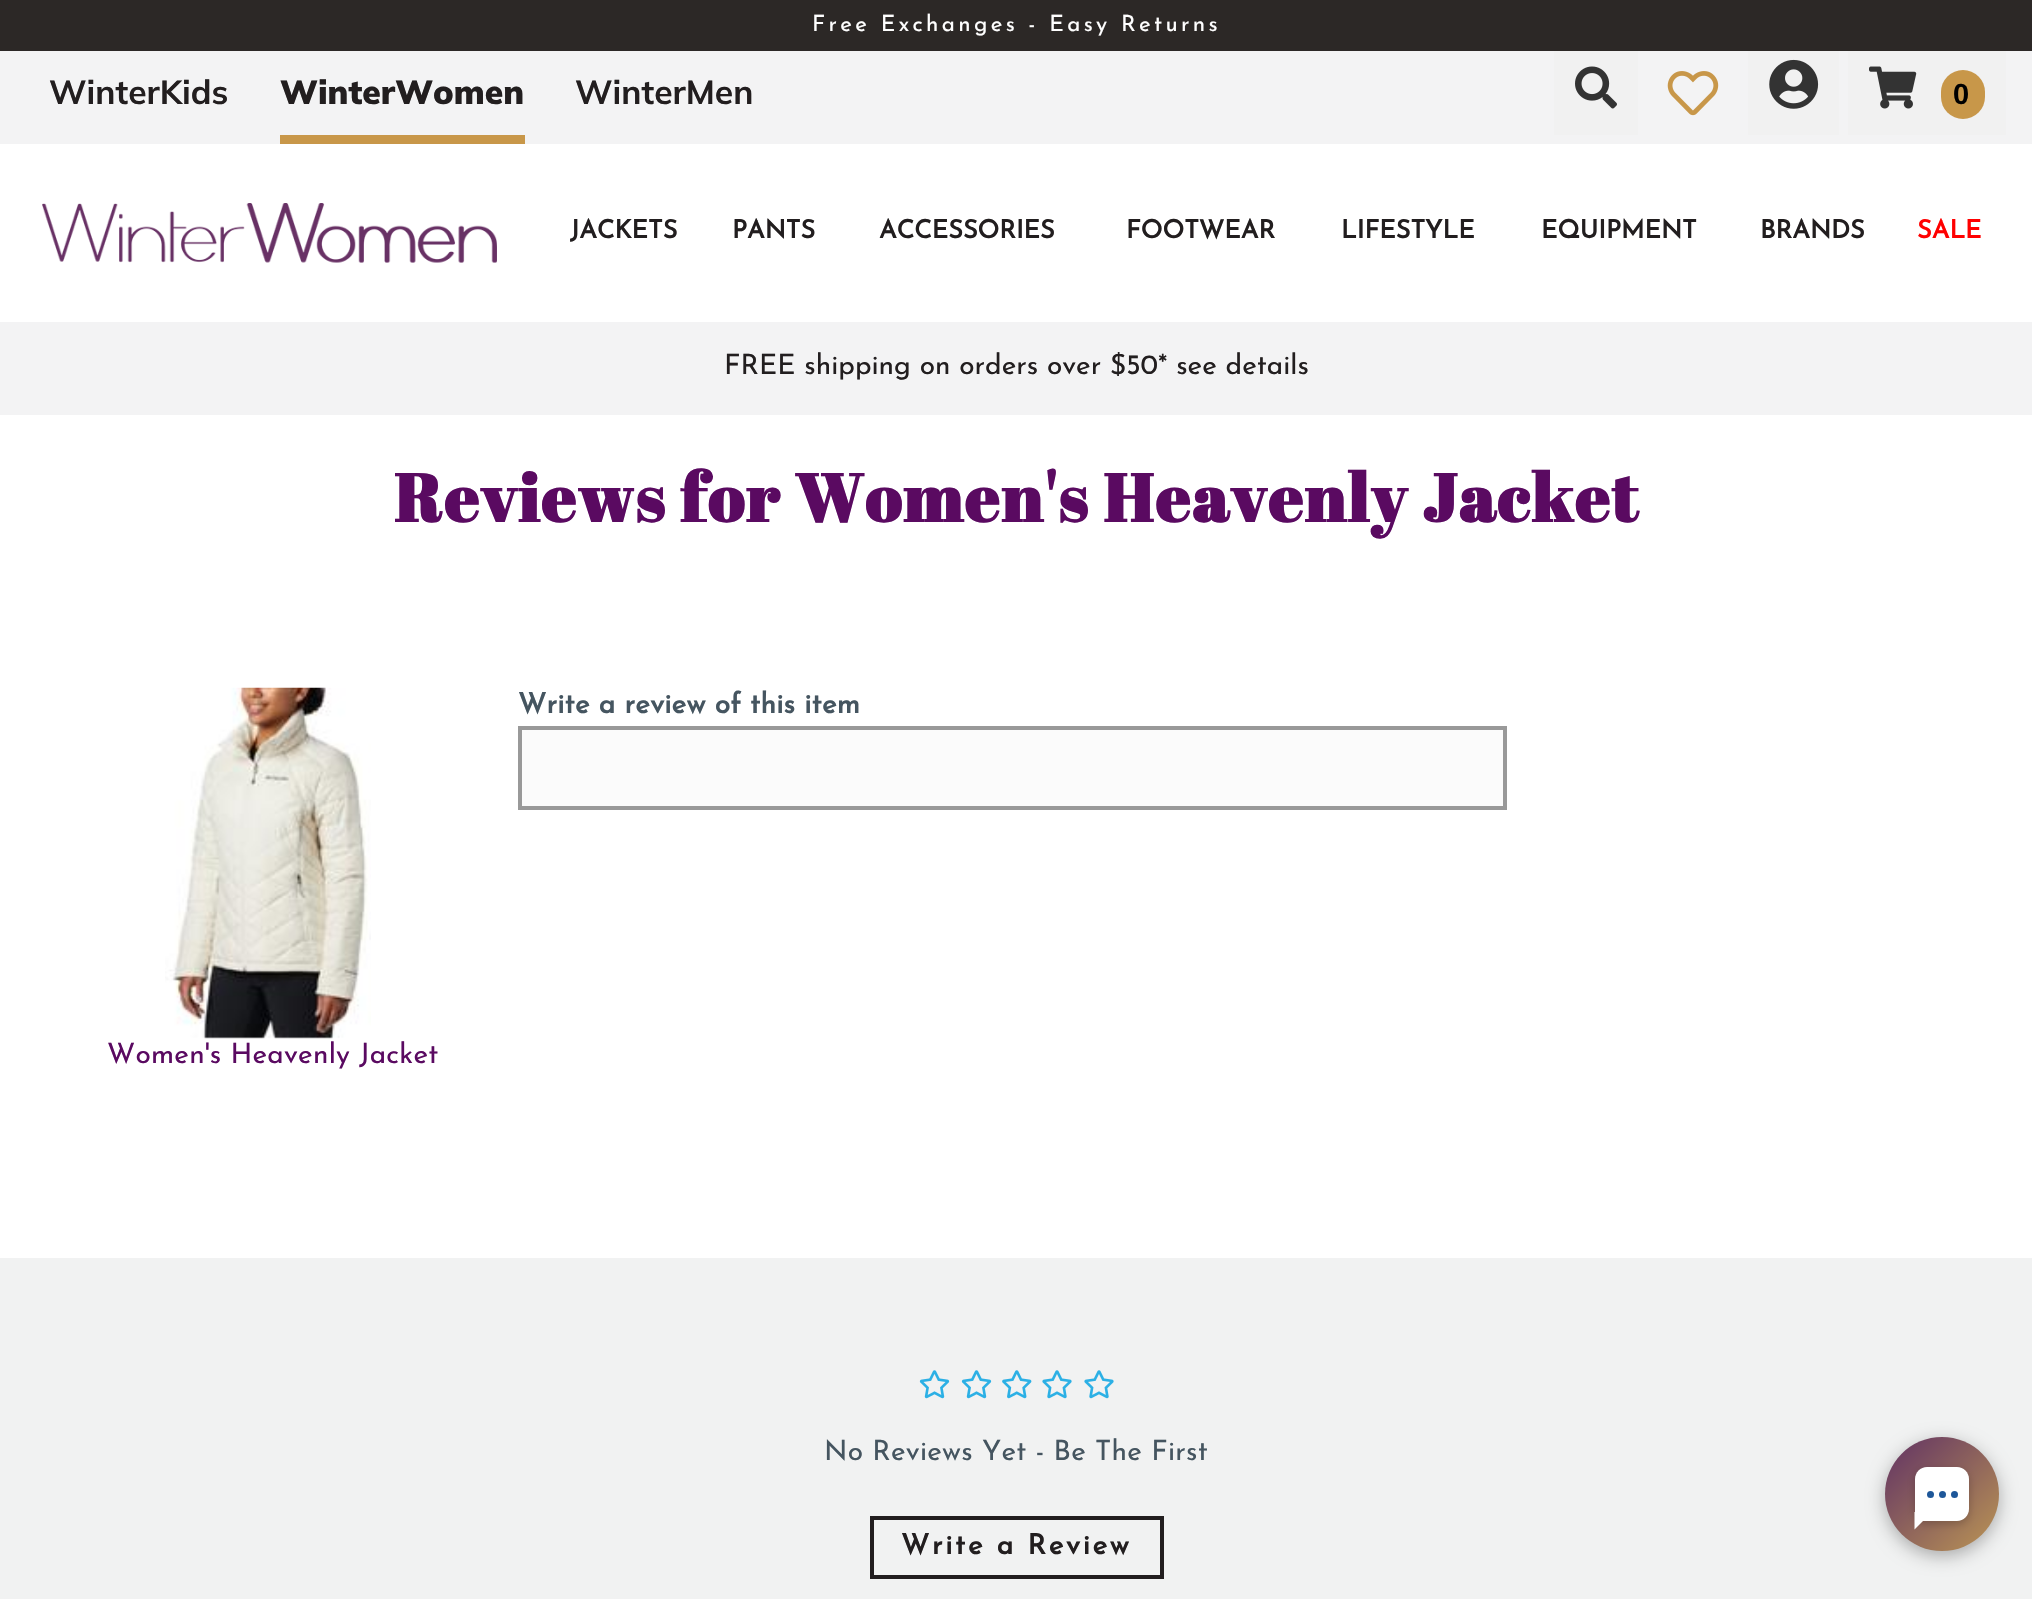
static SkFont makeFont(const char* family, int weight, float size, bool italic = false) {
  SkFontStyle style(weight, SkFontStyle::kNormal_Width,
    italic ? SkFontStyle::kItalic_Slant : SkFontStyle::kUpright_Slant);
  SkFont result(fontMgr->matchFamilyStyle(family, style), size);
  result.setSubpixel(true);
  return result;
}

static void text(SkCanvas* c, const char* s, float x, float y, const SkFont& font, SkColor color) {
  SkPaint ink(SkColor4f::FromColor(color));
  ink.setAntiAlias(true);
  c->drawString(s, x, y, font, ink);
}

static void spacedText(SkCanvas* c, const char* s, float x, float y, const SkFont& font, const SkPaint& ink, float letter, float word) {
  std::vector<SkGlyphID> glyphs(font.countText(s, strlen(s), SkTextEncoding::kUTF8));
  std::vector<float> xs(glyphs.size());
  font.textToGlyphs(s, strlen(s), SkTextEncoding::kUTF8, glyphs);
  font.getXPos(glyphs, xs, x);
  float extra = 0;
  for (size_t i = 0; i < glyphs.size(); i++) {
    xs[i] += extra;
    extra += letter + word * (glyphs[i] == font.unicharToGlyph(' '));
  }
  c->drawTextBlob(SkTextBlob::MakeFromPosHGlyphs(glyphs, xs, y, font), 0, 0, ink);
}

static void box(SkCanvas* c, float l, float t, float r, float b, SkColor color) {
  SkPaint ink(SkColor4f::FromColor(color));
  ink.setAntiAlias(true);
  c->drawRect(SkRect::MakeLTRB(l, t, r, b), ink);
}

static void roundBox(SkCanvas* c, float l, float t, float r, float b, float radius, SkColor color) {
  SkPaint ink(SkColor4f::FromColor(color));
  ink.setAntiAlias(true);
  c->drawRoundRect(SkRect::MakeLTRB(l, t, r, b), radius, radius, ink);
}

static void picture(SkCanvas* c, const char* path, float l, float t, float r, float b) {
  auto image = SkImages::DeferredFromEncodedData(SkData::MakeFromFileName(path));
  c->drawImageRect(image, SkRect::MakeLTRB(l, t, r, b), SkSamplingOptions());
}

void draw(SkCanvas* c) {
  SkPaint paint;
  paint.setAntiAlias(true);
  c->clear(0xffffffff);
  box(c, 0, 0, 2032, 51, 0xff2c2826);
  SkFont face1 = makeFont("Josefin Sans", 100, 22.4f);
  paint.setColor(0xffffffff);
  spacedText(c, "Free Exchanges - Easy Returns", 812, 31, face1, paint, 3.35f, 0);
  box(c, 0, 51, 2032, 144, 0xfff3f3f4);
  SkFont face2 = makeFont("Mulish", 200, 33.5f);
  text(c, "WinterKids", 49, 104, face2, 0xff221e1f);
  box(c, 280, 135, 525, 144, 0xffc89749);
  SkFont face3 = makeFont("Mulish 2", 200, 33.5f);
  text(c, "WinterWomen", 280, 104, face3, 0xff221e1f);
  text(c, "WinterMen", 575, 104, face2, 0xff221e1f);
  box(c, 1554, 51, 1638, 135, 0xfff1f1f1);
  picture(c, "img_01.png", 1575, 66, 1617, 109);
  picture(c, "img_02.png", 1667, 71, 1719, 116);
  box(c, 1748, 51, 1839, 135, 0xfff1f1f1);
  picture(c, "img_03.png", 1769, 59, 1819, 109);
  box(c, 1848, 51, 2006, 135, 0xfff1f1f1);
  picture(c, "img_04.png", 1869, 66, 1917, 109);
  roundBox(c, 1941, 70, 1985, 119, 22, 0xffc89749);
  SkFont face4 = makeFont("Liberation Sans", 700, 29);
  text(c, "0", 1953, 104, face4, 0xff000000);
  picture(c, "img_05.png", 42, 203, 497, 263);
  SkFont face5 = makeFont("Josefin Sans", 700, 25.25f);
  text(c, "JACKETS", 570, 238, face5, 0xff221e1f);
  text(c, "PANTS", 732, 238, face5, 0xff221e1f);
  text(c, "ACCESSORIES", 879, 238, face5, 0xff221e1f);
  text(c, "FOOTWEAR", 1126, 238, face5, 0xff221e1f);
  text(c, "LIFESTYLE", 1341, 238, face5, 0xff221e1f);
  text(c, "EQUIPMENT", 1541, 238, face5, 0xff221e1f);
  text(c, "BRANDS", 1760, 238, face5, 0xff221e1f);
  text(c, "SALE", 1917, 238, face5, 0xffff0000);
  box(c, 0, 322, 2032, 415, 0xfff3f3f4);
  SkFont face6 = makeFont("Josefin Sans", 100, 28);
  text(c, "FREE shipping on orders over $50* see details", 724, 374, face6, 0xff221e1f);
  SkFont face7 = makeFont("Abril Fatface", 700, 67.25f);
  paint.setColor(0xff5a0a61);
  spacedText(c, "Reviews for Women's Heavenly Jacket", 394, 522, face7, paint, 1.75f, 0);
  SkFont face8 = makeFont("Josefin Sans", 700, 28);
  paint.setColor(0xff455560);
  spacedText(c, "Write a review of this item", 518, 713, face8, paint, 0.25f, 0);
  paint.setColor(0xfffbfbfb);
  c->drawRect(SkRect::MakeLTRB(520, 728, 1505, 808), paint);
  paint.setStyle(SkPaint::kStroke_Style);
  paint.setStrokeWidth(4);
  paint.setColor(0xff999999);
  c->drawRect(SkRect::MakeLTRB(520, 728, 1505, 808), paint);
  picture(c, "img_06.png", 165, 687, 371, 1039);
  paint.setStyle(SkPaint::kFill_Style);
  paint.setColor(0xff5a0a61);
  spacedText(c, "Women's Heavenly Jacket", 107, 1063, face6, paint, 0.25f, 0);
  box(c, 0, 1258, 2032, 1599, 0xfff1f2f2);
  picture(c, "img_07.png", 919, 1370, 950, 1399);
  picture(c, "img_07.png", 961, 1370, 992, 1399);
  picture(c, "img_08.png", 1002, 1370, 1032, 1399);
  picture(c, "img_09.png", 1042, 1370, 1072, 1399);
  picture(c, "img_09.png", 1084, 1370, 1114, 1399);
  paint.setColor(0xff455560);
  spacedText(c, "No Reviews Yet - Be The First", 824, 1460, face6, paint, 0.25f, 0);
  paint.setStyle(SkPaint::kStroke_Style);
  paint.setColor(0xff221e1f);
  c->drawRect(SkRect::MakeLTRB(872, 1518, 1162, 1577), paint);
  paint.setStyle(SkPaint::kFill_Style);
  spacedText(c, "Write a Review", 901, 1554, face8, paint, 2.75f, 0);
  paint.setColor(0x4d000000);
  paint.setMaskFilter(SkMaskFilter::MakeBlur(kNormal_SkBlurStyle, 9));
  c->drawRoundRect(SkRect::MakeLTRB(1885, 1442, 1999, 1556), 57, 57, paint);
  paint.setMaskFilter(nullptr);
  {
    const SkColor colors[] = {0xff613264, 0xffbb9554};
    const float stops[] = {0, 1};
    const SkPoint ends[] = {{1885, 1437}, {1999, 1551}};
    paint.setShader(SkGradientShader::MakeLinear(ends, colors, stops, 2, SkTileMode::kClamp));
    paint.setAlpha(255);
  }
  c->drawCircle(1942, 1494, 57, paint);
  paint.setShader(nullptr);
  paint.setColor(0x33000000);
  paint.setMaskFilter(SkMaskFilter::MakeBlur(kNormal_SkBlurStyle, 4.5f));
  c->drawRoundRect(SkRect::MakeLTRB(1915, 1470, 1969, 1524), 12, 12, paint);
  paint.setMaskFilter(nullptr);
  paint.setColor(0xffffffff);
  c->drawPath(SkPathBuilder().moveTo(1927, 1467).lineTo(1957, 1467).cubicTo(1963.5f, 1467, 1969, 1472.5f, 1969, 1479).lineTo(1969, 1509).cubicTo(1969, 1515.5f, 1963.5f, 1521, 1957, 1521).lineTo(1915, 1521).lineTo(1915, 1479).cubicTo(1915, 1472.5f, 1920.5f, 1467, 1927, 1467).close().detach(), paint);
  paint.setColor(0xff1e5799);
  c->drawCircle(1930.5f, 1494.5f, 3.5f, paint);
  c->drawCircle(1942.5f, 1494.5f, 3.5f, paint);
  c->drawCircle(1954.5f, 1494.5f, 3.5f, paint);
  paint.setColor(0xffffffff);
  c->drawPath(SkPathBuilder().moveTo(1914.5f, 1529.5f).lineTo(1914.5f, 1512).lineTo(1932, 1512).close().detach(), paint);
}
